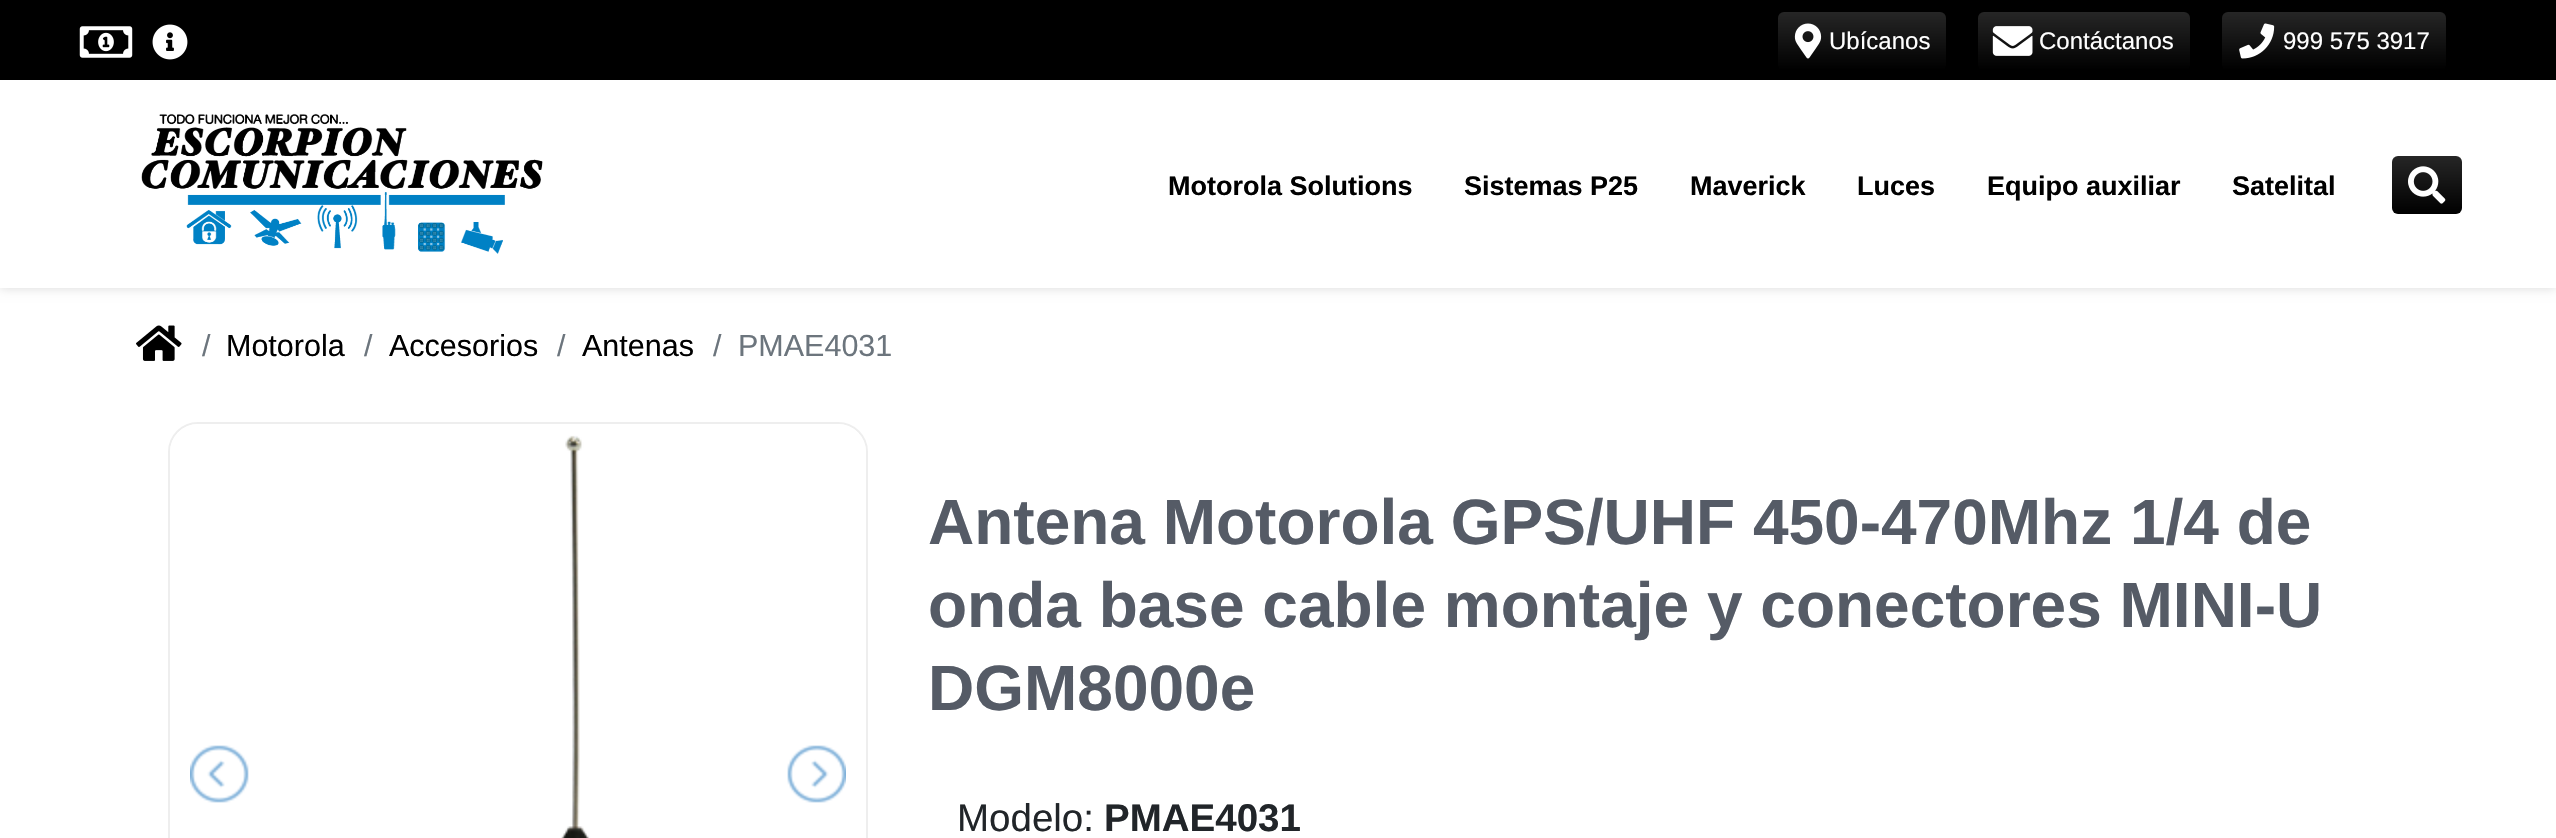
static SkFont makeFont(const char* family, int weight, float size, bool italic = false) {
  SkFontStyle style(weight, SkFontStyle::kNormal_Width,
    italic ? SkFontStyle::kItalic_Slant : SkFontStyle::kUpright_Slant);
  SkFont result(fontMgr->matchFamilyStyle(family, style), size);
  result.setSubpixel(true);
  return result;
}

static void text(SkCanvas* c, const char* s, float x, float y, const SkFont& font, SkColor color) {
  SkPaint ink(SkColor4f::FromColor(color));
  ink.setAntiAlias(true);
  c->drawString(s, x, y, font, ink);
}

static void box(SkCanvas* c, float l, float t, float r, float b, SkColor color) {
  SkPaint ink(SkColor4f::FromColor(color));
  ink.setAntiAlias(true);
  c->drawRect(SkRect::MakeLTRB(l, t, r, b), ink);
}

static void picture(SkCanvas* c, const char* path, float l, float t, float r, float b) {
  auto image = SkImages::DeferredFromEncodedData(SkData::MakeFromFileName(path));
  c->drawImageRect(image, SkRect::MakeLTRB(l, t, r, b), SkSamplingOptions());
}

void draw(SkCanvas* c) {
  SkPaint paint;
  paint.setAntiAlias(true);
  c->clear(0xffffffff);
  box(c, 0, 0, 2556, 80, 0xff000000);
  picture(c, "img_01.png", 79, 26, 133, 58);
  picture(c, "img_02.png", 152, 24, 188, 60);
  {
    const SkColor colors[] = {0xff262626, 0xff000000};
    const float stops[] = {0, 1};
    const SkPoint ends[] = {{1862, 12}, {1862, 70}};
    paint.setShader(SkGradientShader::MakeLinear(ends, colors, stops, 2, SkTileMode::kClamp));
    paint.setAlpha(255);
  }
  c->drawRoundRect(SkRect::MakeLTRB(1778, 12, 1946, 70), 6, 6, paint);
  picture(c, "img_03.png", 1794, 23, 1822, 59);
  SkFont face1 = makeFont("Arimo", 400, 24);
  text(c, "Ubícanos", 1829, 49, face1, 0xffffffff);
  {
    const SkColor colors[] = {0xff262626, 0xff000000};
    const float stops[] = {0, 1};
    const SkPoint ends[] = {{2084, 12}, {2084, 70}};
    paint.setShader(SkGradientShader::MakeLinear(ends, colors, stops, 2, SkTileMode::kClamp));
    paint.setAlpha(255);
  }
  c->drawRoundRect(SkRect::MakeLTRB(1978, 12, 2190, 70), 6, 6, paint);
  picture(c, "img_04.png", 1992, 26, 2033, 56);
  text(c, "Contáctanos", 2039, 49, face1, 0xffffffff);
  {
    const SkColor colors[] = {0xff262626, 0xff000000};
    const float stops[] = {0, 1};
    const SkPoint ends[] = {{2334, 12}, {2334, 70}};
    paint.setShader(SkGradientShader::MakeLinear(ends, colors, stops, 2, SkTileMode::kClamp));
    paint.setAlpha(255);
  }
  c->drawRoundRect(SkRect::MakeLTRB(2222, 12, 2446, 70), 6, 6, paint);
  picture(c, "img_05.png", 2239, 23, 2275, 59);
  text(c, "999 575 3917", 2283, 49, face1, 0xffffffff);
  c->save();
  c->clipPath(SkPathBuilder(SkPathFillType::kEvenOdd).moveTo(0, 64).lineTo(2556, 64).lineTo(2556, 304).lineTo(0, 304).close().moveTo(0, 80).lineTo(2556, 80).lineTo(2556, 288).lineTo(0, 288).close().detach(), true);
  paint.setShader(nullptr);
  paint.setColor(0x26000000);
  paint.setMaskFilter(SkMaskFilter::MakeBlur(kNormal_SkBlurStyle, 5));
  c->drawRect(SkRect::MakeLTRB(0, 80, 2556, 288), paint);
  paint.setMaskFilter(nullptr);
  c->restore();
  picture(c, "img_06.png", 141, 113, 543, 254);
  SkFont face2 = makeFont("Liberation Sans", 700, 27);
  text(c, "Motorola Solutions", 1168, 195, face2, 0xff000000);
  text(c, "Sistemas P25", 1464, 195, face2, 0xff000000);
  text(c, "Maverick", 1690, 195, face2, 0xff000000);
  text(c, "Luces", 1857, 195, face2, 0xff000000);
  text(c, "Equipo auxiliar", 1987, 195, face2, 0xff000000);
  text(c, "Satelital", 2232, 195, face2, 0xff000000);
  {
    const SkColor colors[] = {0xff262626, 0xff000000};
    const float stops[] = {0, 1};
    const SkPoint ends[] = {{2427, 156}, {2427, 214}};
    paint.setShader(SkGradientShader::MakeLinear(ends, colors, stops, 2, SkTileMode::kClamp));
    paint.setAlpha(255);
  }
  c->drawRoundRect(SkRect::MakeLTRB(2392, 156, 2462, 214), 6, 6, paint);
  picture(c, "img_07.png", 2408, 166, 2446, 204);
  picture(c, "img_08.png", 136, 325, 182, 361);
  SkFont face3 = makeFont("Arimo", 400, 30.5f);
  text(c, "/", 202, 356, face3, 0xff6c757d);
  text(c, "Motorola", 226, 356, face3, 0xff000000);
  text(c, "/", 364, 356, face3, 0xff6c757d);
  text(c, "Accesorios", 389, 356, face3, 0xff000000);
  text(c, "/", 557, 356, face3, 0xff6c757d);
  text(c, "Antenas", 582, 356, face3, 0xff000000);
  text(c, "/", 713, 356, face3, 0xff6c757d);
  text(c, "PMAE4031", 738, 356, face3, 0xff6c757d);
  paint.setStyle(SkPaint::kStroke_Style);
  paint.setStrokeWidth(2);
  paint.setShader(nullptr);
  paint.setColor(0xffeeeeee);
  c->drawRoundRect(SkRect::MakeLTRB(169, 423, 867, 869), 29, 29, paint);
  picture(c, "img_09.png", 170, 424, 866, 838);
  picture(c, "img_10.png", 190, 745, 249, 803);
  picture(c, "img_11.png", 787, 745, 846, 803);
  SkFont face4 = makeFont("Arimo", 700, 64);
  text(c, "Antena Motorola GPS/UHF 450-470Mhz 1/4 de", 928, 544, face4, 0xff555b66);
  text(c, "onda base cable montaje y conectores MINI-U", 928, 627, face4, 0xff555b66);
  text(c, "DGM8000e", 928, 710, face4, 0xff555b66);
  SkFont face5 = makeFont("Arimo", 400, 38.5f);
  text(c, "Modelo:", 957, 831, face5, 0xff212529);
  SkFont face6 = makeFont("Arimo", 700, 38.5f);
  text(c, "PMAE4031", 1104, 831, face6, 0xff212529);
}
